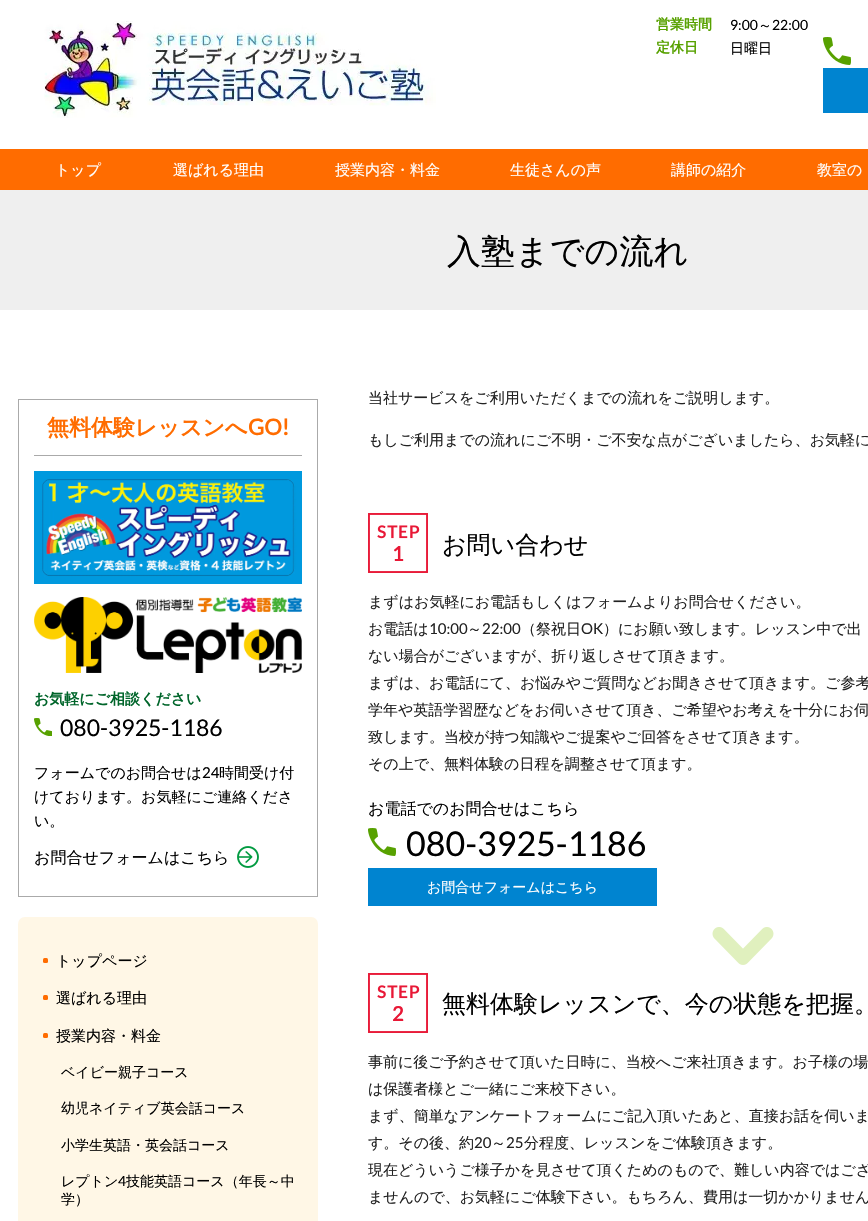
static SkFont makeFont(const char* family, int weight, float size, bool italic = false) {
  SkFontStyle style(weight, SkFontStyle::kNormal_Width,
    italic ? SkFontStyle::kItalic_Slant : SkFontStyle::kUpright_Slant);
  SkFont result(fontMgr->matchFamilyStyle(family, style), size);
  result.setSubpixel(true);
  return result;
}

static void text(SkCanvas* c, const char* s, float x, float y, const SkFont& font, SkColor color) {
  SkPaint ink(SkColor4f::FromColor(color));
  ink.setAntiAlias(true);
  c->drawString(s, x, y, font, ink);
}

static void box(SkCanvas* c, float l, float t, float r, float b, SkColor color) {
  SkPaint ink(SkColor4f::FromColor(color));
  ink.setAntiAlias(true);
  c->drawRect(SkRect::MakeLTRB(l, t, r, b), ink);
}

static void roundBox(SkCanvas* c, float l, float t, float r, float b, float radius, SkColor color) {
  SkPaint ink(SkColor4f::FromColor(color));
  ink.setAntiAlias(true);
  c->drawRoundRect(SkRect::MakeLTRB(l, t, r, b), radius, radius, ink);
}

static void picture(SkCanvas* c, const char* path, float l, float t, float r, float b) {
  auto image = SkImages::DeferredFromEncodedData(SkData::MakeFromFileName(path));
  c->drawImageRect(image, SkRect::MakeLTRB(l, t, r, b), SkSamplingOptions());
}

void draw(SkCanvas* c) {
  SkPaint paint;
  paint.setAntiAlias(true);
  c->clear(0xffffffff);
  picture(c, "img_01.png", 44, 21, 436, 118);
  SkFont face1 = makeFont("WenQuanYi Zen Hei", 700, 14);
  text(c, "営業時間", 656, 29, face1, 0xff57a100);
  SkFont face2 = makeFont("Lato", 400, 14);
  text(c, "9:00", 730, 30, face2, 0xff000000);
  SkFont face3 = makeFont("WenQuanYi Zen Hei", 500, 14);
  text(c, "～", 758, 30, face3, 0xff000000);
  text(c, "22:00", 772, 30, face2, 0xff000000);
  text(c, "定休日", 656, 52, face1, 0xff57a100);
  text(c, "日曜日", 730, 53, face3, 0xff000000);
  picture(c, "img_02.png", 823, 37, 851, 65);
  box(c, 823, 68, 868, 113, 0xff0084d0);
  box(c, 0, 149, 868, 190, 0xffff6c00);
  SkFont face4 = makeFont("WenQuanYi Zen Hei", 500, 15);
  text(c, "トップ", 55, 175, face4, 0xffffffff);
  text(c, "選ばれる理由", 173, 175, face4, 0xffffffff);
  text(c, "授業内容・料金", 335, 175, face4, 0xffffffff);
  text(c, "生徒さんの声", 510, 175, face4, 0xffffffff);
  text(c, "講師の紹介", 671, 175, face4, 0xffffffff);
  text(c, "教室の", 817, 175, face4, 0xffffffff);
  box(c, 0, 190, 868, 310, 0xffefefef);
  SkFont face5 = makeFont("WenQuanYi Zen Hei", 500, 34);
  text(c, "入塾までの流れ", 447, 263, face5, 0xff000000);
  paint.setStyle(SkPaint::kStroke_Style);
  paint.setStrokeWidth(1);
  paint.setColor(0xffaaaaaa);
  c->drawRect(SkRect::MakeLTRB(18.5f, 399.5f, 317.5f, 896.5f), paint);
  box(c, 34, 455, 302, 456, 0xffaaaaaa);
  SkFont face6 = makeFont("WenQuanYi Zen Hei", 700, 22);
  text(c, "無料体験レッスンへ", 47, 435, face6, 0xffff6c00);
  SkFont face7 = makeFont("Lato", 700, 22);
  text(c, "GO!", 248, 435, face7, 0xffff6c00);
  picture(c, "img_03.png", 34, 471, 302, 584);
  picture(c, "img_04.png", 34, 597, 302, 673);
  SkFont face8 = makeFont("WenQuanYi Zen Hei", 700, 15);
  text(c, "お気軽にご相談ください", 34, 704, face8, 0xff00652a);
  picture(c, "img_05.png", 34, 718, 52, 736);
  SkFont face9 = makeFont("Lato", 400, 23);
  text(c, "080-3925-1186", 60, 736, face9, 0xff000000);
  text(c, "フォームでのお問合せは", 34, 778, face4, 0xff000000);
  SkFont face10 = makeFont("Lato", 400, 15);
  text(c, "24", 202, 778, face10, 0xff000000);
  text(c, "時間受け付", 219, 778, face4, 0xff000000);
  text(c, "けております。お気軽にご連絡くださ", 34, 802, face4, 0xff000000);
  text(c, "い。", 34, 826, face4, 0xff000000);
  SkFont face11 = makeFont("WenQuanYi Zen Hei", 500, 16);
  text(c, "お問合せフォームはこちら", 34, 863, face11, 0xff000000);
  picture(c, "img_06.png", 237, 846, 259, 868);
  roundBox(c, 18, 917, 318, 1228, 7, 0xfffff7e6);
  roundBox(c, 43, 958, 48, 963, 1.5f, 0xffff6c00);
  text(c, "トップページ", 56, 966, face4, 0xff000000);
  roundBox(c, 43, 995, 48, 1000, 1.5f, 0xffff6c00);
  text(c, "選ばれる理由", 56, 1003, face4, 0xff000000);
  roundBox(c, 43, 1033, 48, 1038, 1.5f, 0xffff6c00);
  text(c, "授業内容・料金", 56, 1041, face4, 0xff000000);
  text(c, "ベイビー親子コース", 61, 1077, face3, 0xff000000);
  text(c, "幼児ネイティブ英会話コース", 61, 1113, face3, 0xff000000);
  text(c, "小学生英語・英会話コース", 61, 1150, face3, 0xff000000);
  text(c, "レプトン", 61, 1186, face3, 0xff000000);
  text(c, "4", 118, 1186, face2, 0xff000000);
  text(c, "技能英語コース（年長～中", 126, 1186, face3, 0xff000000);
  text(c, "学）", 61, 1204, face3, 0xff000000);
  text(c, "当社サービスをご利用いただくまでの流れをご説明します。", 368, 403, face4, 0xff222222);
  text(c, "もしご利用までの流れにご不明・ご不安な点がございましたら、お気軽に", 368, 445, face4, 0xff222222);
  picture(c, "img_07.png", 368, 513, 428, 573);
  SkFont face12 = makeFont("Lato", 700, 20);
  text(c, "1", 392, 561, face12, 0xffe81836);
  SkFont face13 = makeFont("WenQuanYi Zen Hei", 500, 24);
  text(c, "お問い合わせ", 442, 553, face13, 0xff000000);
  text(c, "まずはお気軽にお電話もしくはフォームよりお問合せください。", 368, 607, face4, 0xff222222);
  text(c, "お電話は", 368, 634, face4, 0xff222222);
  text(c, "10:00", 429, 634, face10, 0xff222222);
  text(c, "～", 467, 634, face4, 0xff222222);
  text(c, "22:00", 482, 634, face10, 0xff222222);
  text(c, "（祭祝日", 521, 634, face4, 0xff222222);
  text(c, "OK", 581, 634, face10, 0xff222222);
  text(c, "）にお願い致します。レッスン中で出", 603, 634, face4, 0xff222222);
  text(c, "ない場合がございますが、折り返しさせて頂きます。", 368, 661, face4, 0xff222222);
  text(c, "まずは、お電話にて、お悩みやご質問などお聞きさせて頂きます。ご参考", 368, 688, face4, 0xff222222);
  text(c, "学年や英語学習歴などをお伺いさせて頂き、ご希望やお考えを十分にお伺", 368, 715, face4, 0xff222222);
  text(c, "致します。当校が持つ知識やご提案やご回答をさせて頂きます。", 368, 742, face4, 0xff222222);
  text(c, "その上で、無料体験の日程を調整させて頂ます。", 368, 769, face4, 0xff222222);
  text(c, "お電話でのお問合せはこちら", 368, 814, face11, 0xff000000);
  picture(c, "img_02.png", 368, 828, 396, 856);
  SkFont face14 = makeFont("Lato", 400, 34);
  text(c, "080-3925-1186", 406, 856, face14, 0xff000000);
  box(c, 368, 868, 657, 906, 0xff0084d0);
  text(c, "お問合せフォームはこちら", 427, 892, face3, 0xffffffff);
  picture(c, "img_08.png", 712, 927, 774, 965);
  picture(c, "img_07.png", 368, 973, 428, 1033);
  text(c, "2", 392, 1021, face12, 0xffe81836);
  text(c, "無料体験レッスンで、今の状態を把握。", 442, 1012, face13, 0xff000000);
  text(c, "事前に後ご予約させて頂いた日時に、当校へご来社頂きます。お子様の場", 368, 1067, face4, 0xff222222);
  text(c, "は保護者様とご一緒にご来校下さい。", 368, 1094, face4, 0xff222222);
  text(c, "まず、簡単なアンケートフォームにご記入頂いたあと、直接お話を伺いま", 368, 1121, face4, 0xff222222);
  text(c, "す。その後、約", 368, 1148, face4, 0xff222222);
  text(c, "20", 474, 1148, face10, 0xff222222);
  text(c, "～", 491, 1148, face4, 0xff222222);
  text(c, "25", 506, 1148, face10, 0xff222222);
  text(c, "分程度、レッスンをご体験頂きます。", 524, 1148, face4, 0xff222222);
  text(c, "現在どういうご様子かを見させて頂くためのもので、難しい内容ではござ", 368, 1175, face4, 0xff222222);
  text(c, "ませんので、お気軽にご体験下さい。もちろん、費用は一切かかりません", 368, 1202, face4, 0xff222222);
}
